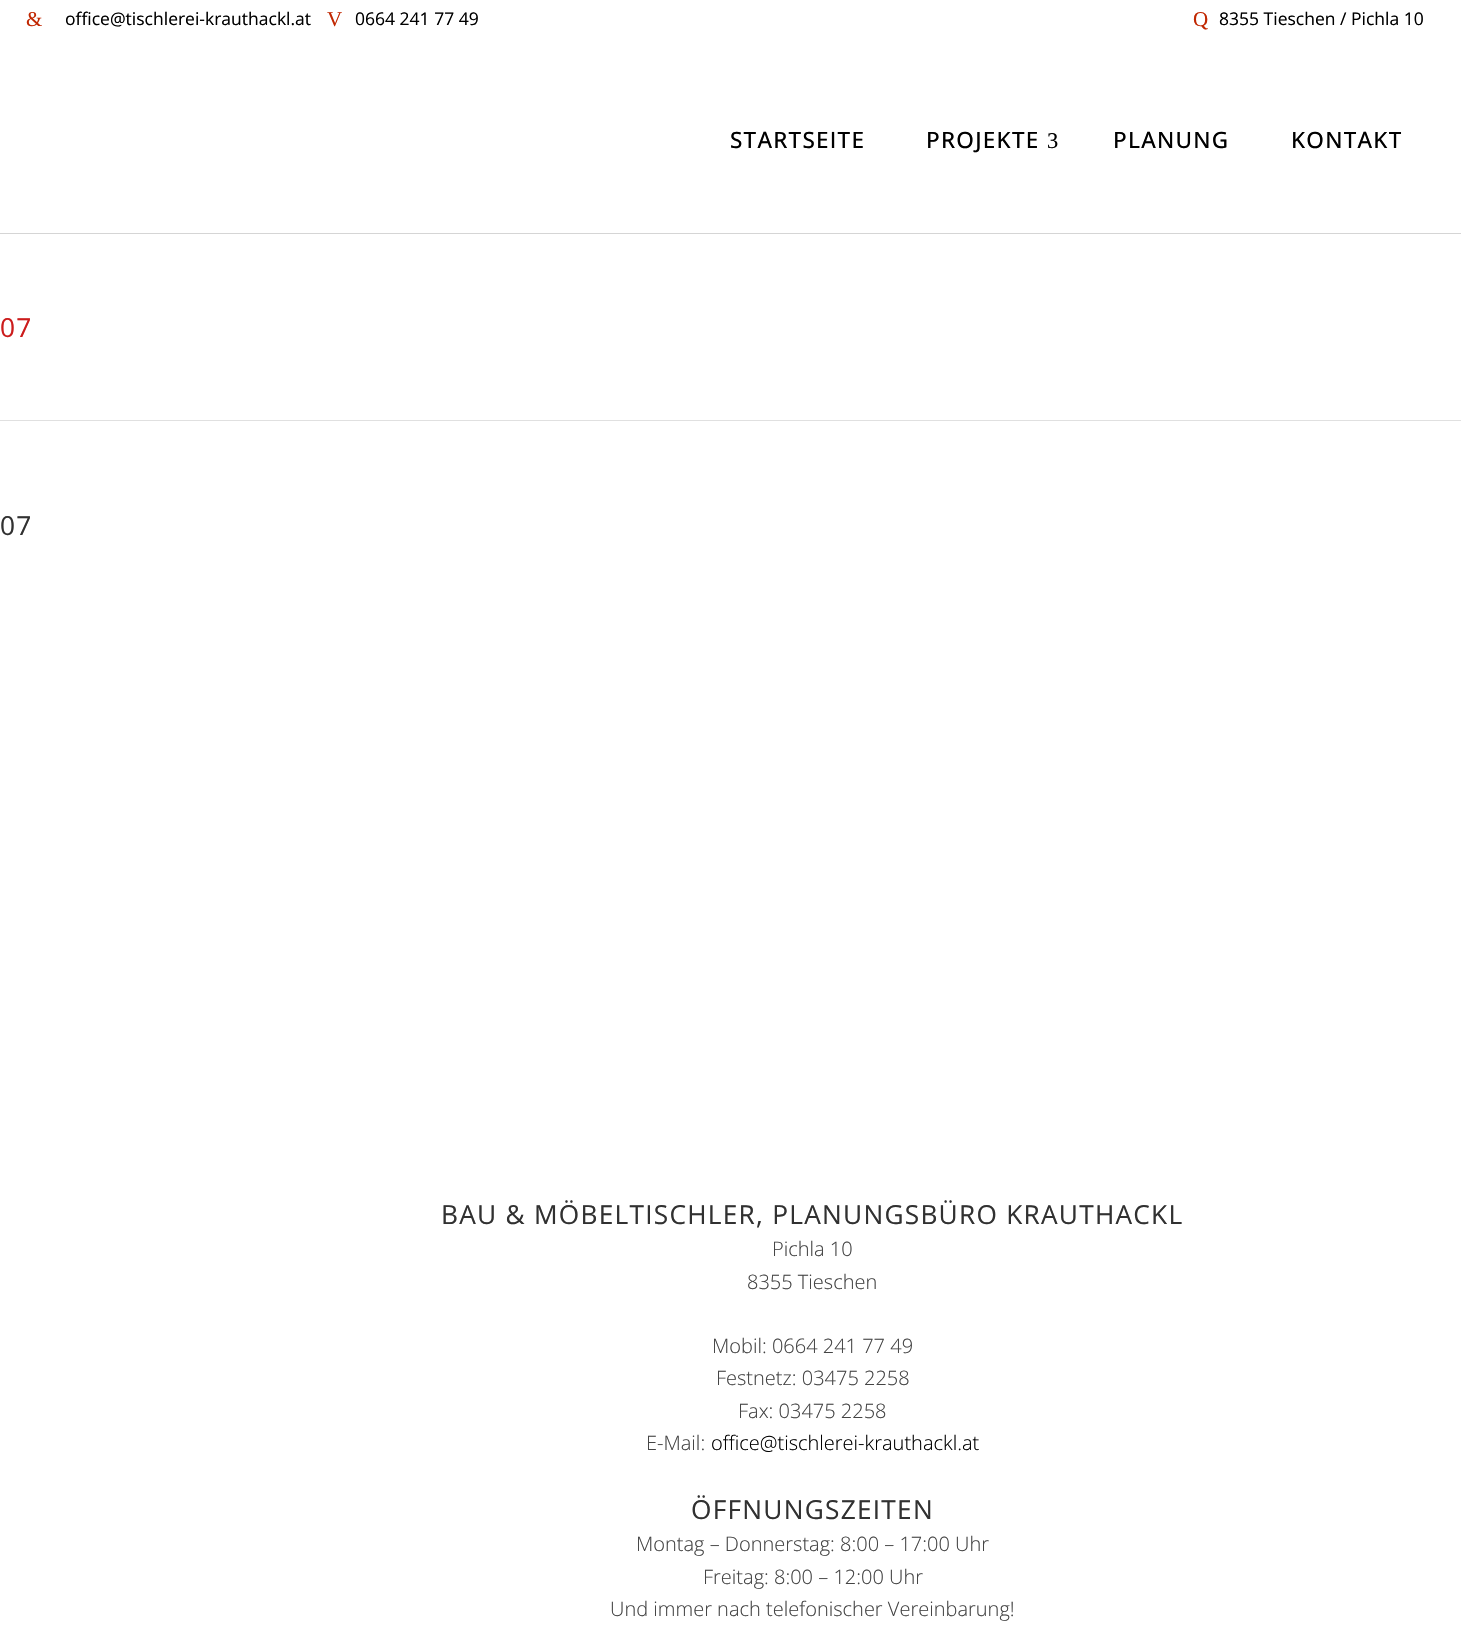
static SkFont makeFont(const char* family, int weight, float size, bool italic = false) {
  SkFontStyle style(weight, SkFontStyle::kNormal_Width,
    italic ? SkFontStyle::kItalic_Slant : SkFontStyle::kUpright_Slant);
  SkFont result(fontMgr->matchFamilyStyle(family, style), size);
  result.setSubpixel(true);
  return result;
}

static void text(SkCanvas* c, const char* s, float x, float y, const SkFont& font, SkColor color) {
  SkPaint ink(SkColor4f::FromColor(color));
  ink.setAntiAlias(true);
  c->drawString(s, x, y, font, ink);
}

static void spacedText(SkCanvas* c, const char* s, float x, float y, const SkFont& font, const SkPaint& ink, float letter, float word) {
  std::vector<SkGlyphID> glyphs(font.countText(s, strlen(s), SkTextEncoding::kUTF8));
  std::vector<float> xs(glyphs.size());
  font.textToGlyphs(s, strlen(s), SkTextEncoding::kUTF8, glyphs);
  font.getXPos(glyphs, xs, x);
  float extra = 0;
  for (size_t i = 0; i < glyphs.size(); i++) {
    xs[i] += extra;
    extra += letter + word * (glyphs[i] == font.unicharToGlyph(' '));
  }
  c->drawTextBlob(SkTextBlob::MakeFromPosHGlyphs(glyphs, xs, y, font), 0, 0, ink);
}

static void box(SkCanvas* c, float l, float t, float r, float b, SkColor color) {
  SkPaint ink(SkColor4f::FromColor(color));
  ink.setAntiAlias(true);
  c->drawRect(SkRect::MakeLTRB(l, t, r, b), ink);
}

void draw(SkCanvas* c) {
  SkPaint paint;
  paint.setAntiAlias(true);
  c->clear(0xffffffff);
  SkFont face1 = makeFont("Liberation Serif", 400, 21);
  text(c, "&", 26, 26, face1, 0xffc12701);
  SkFont face2 = makeFont("Open Sans", 400, 17.5f);
  text(c, "office@tischlerei-krauthackl.at", 65, 25, face2, 0xff000000);
  text(c, "V", 327, 26, face1, 0xffc12701);
  text(c, "0664 241 77 49", 355, 25, face2, 0xff000000);
  text(c, "Q", 1193, 26, face1, 0xffc12701);
  text(c, "8355 Tieschen / Pichla 10", 1219, 25, face2, 0xff000000);
  box(c, 0, 233, 1461, 234, 0xffd5d5d5);
  SkFont face3 = makeFont("Open Sans", 500, 22.5f);
  paint.setColor(0xff000000);
  spacedText(c, "STARTSEITE", 730, 148, face3, paint, 1.25f, 0);
  spacedText(c, "PROJEKTE", 926, 148, face3, paint, 1.25f, 0);
  SkFont face4 = makeFont("Liberation Serif", 400, 22.5f);
  spacedText(c, "3", 1047, 148, face4, paint, 1.25f, 0);
  spacedText(c, "PLANUNG", 1113, 148, face3, paint, 1.25f, 0);
  spacedText(c, "KONTAKT", 1291, 148, face3, paint, 1.25f, 0);
  box(c, 0, 420, 1461, 421, 0xffe0e0e0);
  SkFont face5 = makeFont("Open Sans", 400, 26.25f);
  paint.setColor(0xffcc1c1c);
  spacedText(c, "07", 0, 337, face5, paint, 1.25f, 0);
  paint.setColor(0xff313131);
  spacedText(c, "07", 0, 535, face5, paint, 1.25f, 0);
  spacedText(c, "BAU & MÖBELTISCHLER, PLANUNGSBÜRO KRAUTHACKL", 441, 1224, face5, paint, 1.25f, 0);
  SkFont face6 = makeFont("Open Sans", 300, 20);
  text(c, "Pichla 10", 772, 1256, face6, 0xff444444);
  text(c, "8355 Tieschen", 747, 1289, face6, 0xff444444);
  text(c, "Mobil: 0664 241 77 49", 712, 1353, face6, 0xff444444);
  text(c, "Festnetz: 03475 2258", 716, 1385, face6, 0xff444444);
  text(c, "Fax: 03475 2258", 738, 1418, face6, 0xff444444);
  text(c, "E-Mail:", 646, 1450, face6, 0xff444444);
  text(c, "office@tischlerei-krauthackl.at", 711, 1450, face6, 0xff000000);
  spacedText(c, "ÖFFNUNGSZEITEN", 691, 1519, face5, paint, 1.25f, 0);
  text(c, "Montag – Donnerstag: 8:00 – 17:00 Uhr", 636, 1551, face6, 0xff444444);
  text(c, "Freitag: 8:00 – 12:00 Uhr", 703, 1584, face6, 0xff444444);
  text(c, "Und immer nach telefonischer Vereinbarung!", 610, 1616, face6, 0xff444444);
}
